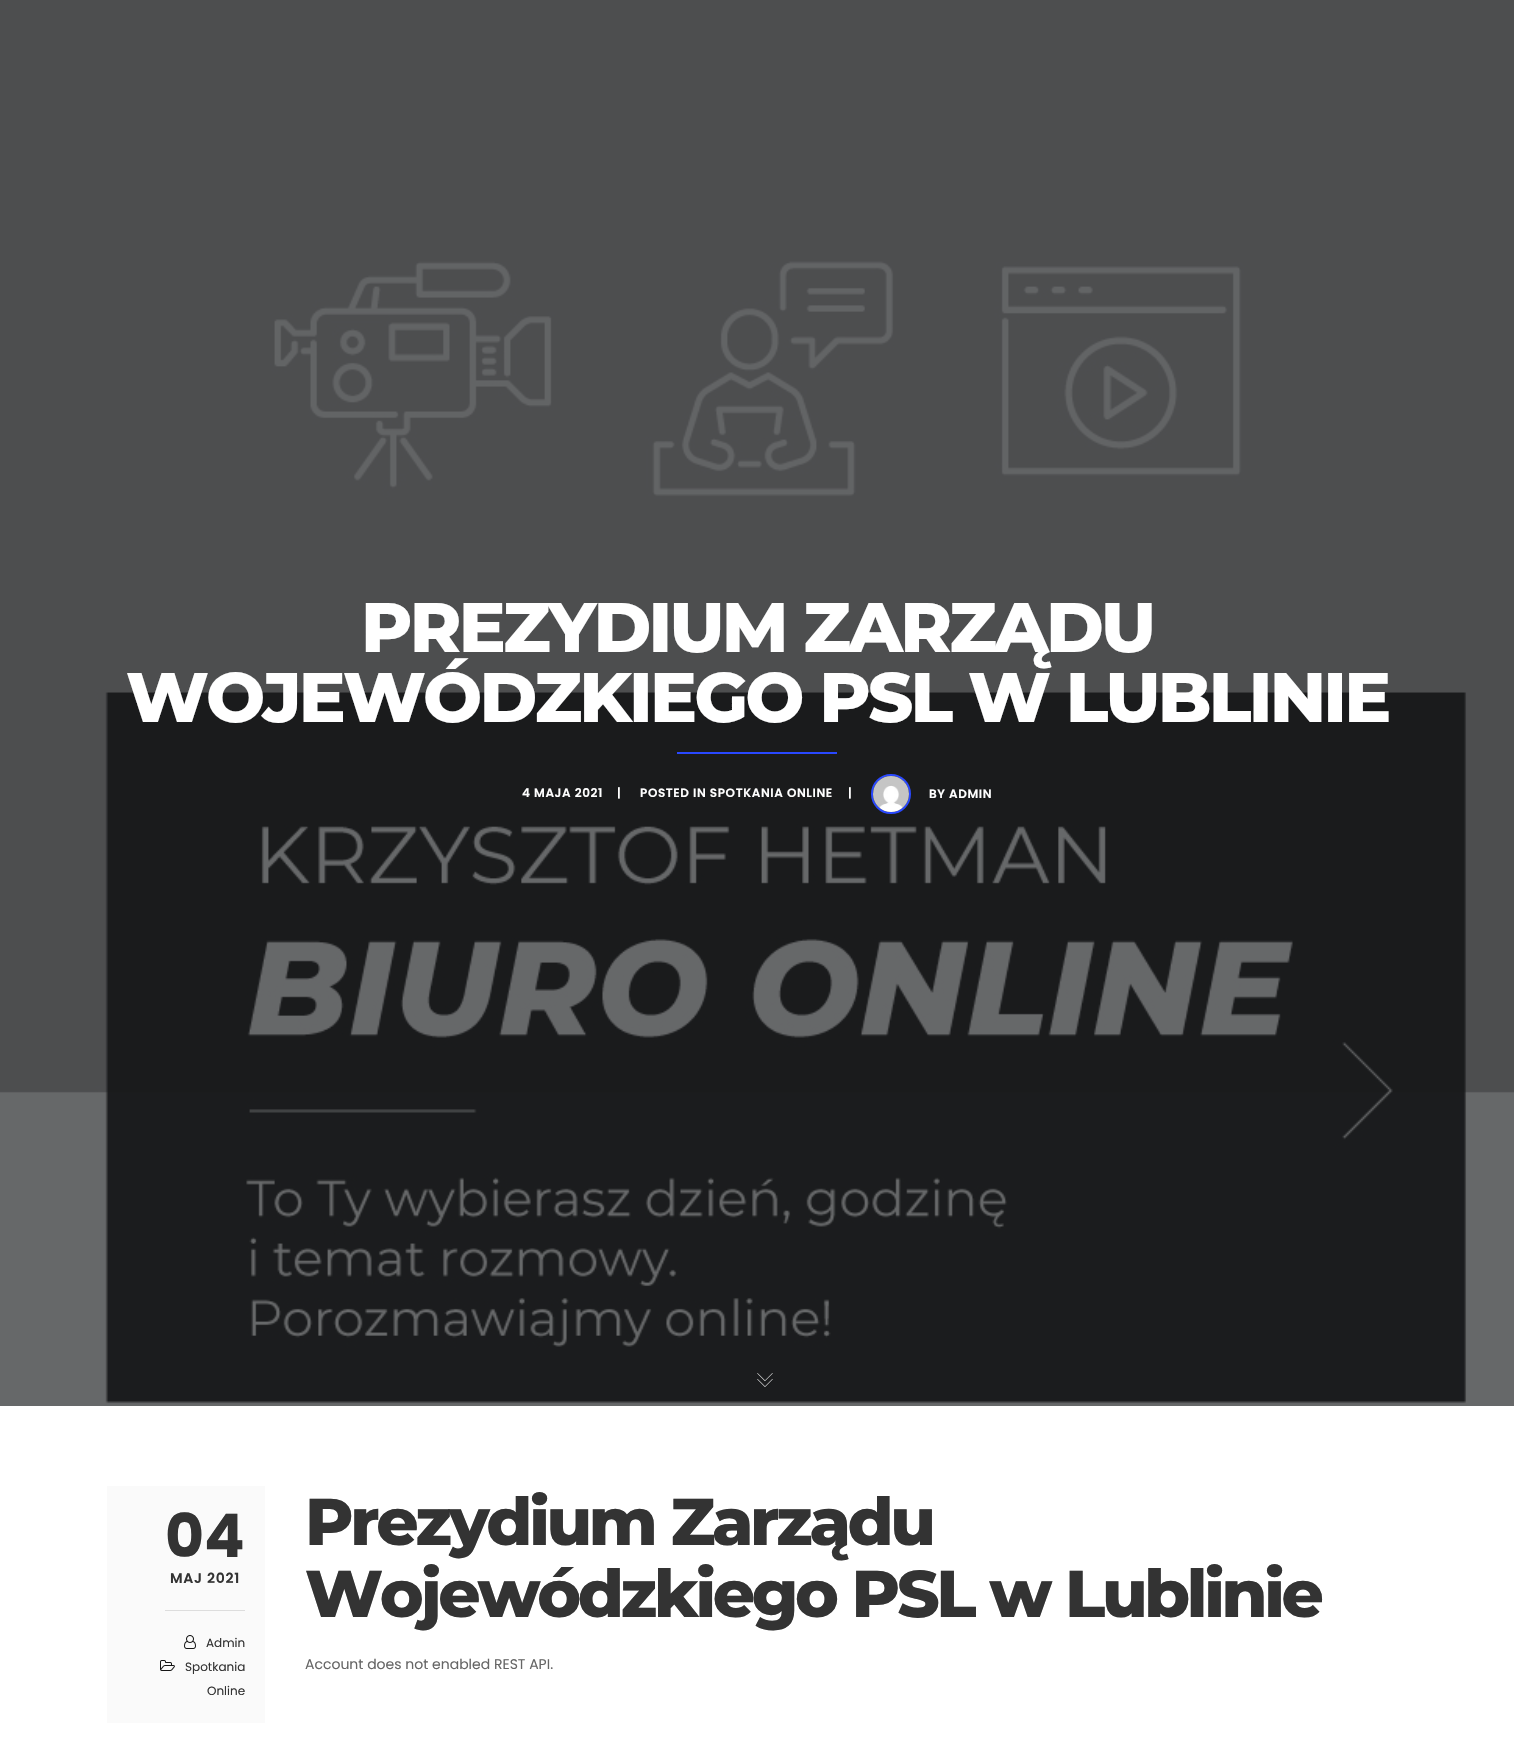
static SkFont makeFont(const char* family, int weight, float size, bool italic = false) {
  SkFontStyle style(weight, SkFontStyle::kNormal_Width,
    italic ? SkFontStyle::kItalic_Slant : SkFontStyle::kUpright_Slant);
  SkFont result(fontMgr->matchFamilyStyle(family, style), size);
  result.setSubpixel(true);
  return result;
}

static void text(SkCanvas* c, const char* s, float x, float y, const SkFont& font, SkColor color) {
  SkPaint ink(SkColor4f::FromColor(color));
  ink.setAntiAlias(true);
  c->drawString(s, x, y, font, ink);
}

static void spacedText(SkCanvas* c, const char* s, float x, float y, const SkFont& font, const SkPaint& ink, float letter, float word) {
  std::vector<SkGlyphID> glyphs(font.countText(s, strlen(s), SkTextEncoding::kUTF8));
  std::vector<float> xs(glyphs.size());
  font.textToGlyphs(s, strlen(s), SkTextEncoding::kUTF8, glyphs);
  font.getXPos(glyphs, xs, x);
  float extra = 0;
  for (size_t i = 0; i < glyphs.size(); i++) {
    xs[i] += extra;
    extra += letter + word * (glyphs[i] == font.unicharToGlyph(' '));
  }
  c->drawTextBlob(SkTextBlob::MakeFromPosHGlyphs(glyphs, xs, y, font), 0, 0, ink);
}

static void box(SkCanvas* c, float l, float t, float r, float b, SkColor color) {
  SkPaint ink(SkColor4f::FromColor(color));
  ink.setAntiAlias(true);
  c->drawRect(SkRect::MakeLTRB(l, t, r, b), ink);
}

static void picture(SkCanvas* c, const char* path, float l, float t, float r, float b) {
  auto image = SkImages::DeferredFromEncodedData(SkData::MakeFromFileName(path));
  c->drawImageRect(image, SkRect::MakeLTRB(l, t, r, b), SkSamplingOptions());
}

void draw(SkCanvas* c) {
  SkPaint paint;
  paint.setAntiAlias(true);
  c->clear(0xffffffff);
  picture(c, "img_01.png", 0, 0, 1514, 1406);
  SkFont face1 = makeFont("Montserrat", 800, 70);
  paint.setColor(0xffffffff);
  spacedText(c, "PREZYDIUM ZARZĄDU", 361, 652, face1, paint, -2.8f, 0);
  spacedText(c, "WOJEWÓDZKIEGO PSL W LUBLINIE", 126, 722, face1, paint, -2.8f, 0);
  box(c, 677, 752, 837, 754, 0xff2948ff);
  SkFont face2 = makeFont("Poppins", 600, 12);
  spacedText(c, "4 MAJA 2021", 522, 797, face2, paint, 0.6f, 0);
  spacedText(c, "|", 617, 797, face2, paint, 0.6f, 0);
  spacedText(c, "POSTED IN SPOTKANIA ONLINE", 640, 797, face2, paint, 0.6f, 0);
  spacedText(c, "|", 848, 797, face2, paint, 0.6f, 0);
  paint.setStyle(SkPaint::kStroke_Style);
  paint.setStrokeWidth(2);
  paint.setColor(0xff2948ff);
  c->drawCircle(891, 794, 19, paint);
  picture(c, "img_02.png", 873, 776, 909, 812);
  paint.setStyle(SkPaint::kFill_Style);
  paint.setColor(0xffffffff);
  spacedText(c, "BY ADMIN", 929, 798, face2, paint, 0.6f, 0);
  picture(c, "img_03.png", 757, 1373, 773, 1387);
  box(c, 107, 1486, 265, 1723, 0xfffafafa);
  box(c, 165, 1610, 245, 1611, 0xffdddddd);
  SkFont face3 = makeFont("Poppins", 700, 60);
  text(c, "04", 165, 1557, face3, 0xff333333);
  SkFont face4 = makeFont("Poppins", 600, 14);
  paint.setColor(0xff333333);
  spacedText(c, "MAJ 2021", 170, 1583, face4, paint, 0.75f, 0);
  picture(c, "img_04.png", 184, 1635, 196, 1649);
  SkFont face5 = makeFont("Poppins", 400, 12);
  text(c, "Admin", 206, 1647, face5, 0xff333333);
  picture(c, "img_05.png", 160, 1660, 175, 1671);
  text(c, "Spotkania", 185, 1671, face5, 0xff333333);
  text(c, "Online", 207, 1695, face5, 0xff333333);
  SkFont face6 = makeFont("Montserrat", 800, 66);
  spacedText(c, "Prezydium Zarządu", 305, 1545, face6, paint, -3.3f, 0);
  spacedText(c, "Wojewódzkiego PSL w Lublinie", 305, 1617, face6, paint, -3.3f, 0);
  SkFont face7 = makeFont("Poppins", 400, 14);
  text(c, "Account does not enabled REST API.", 305, 1669, face7, 0xff666666);
}
